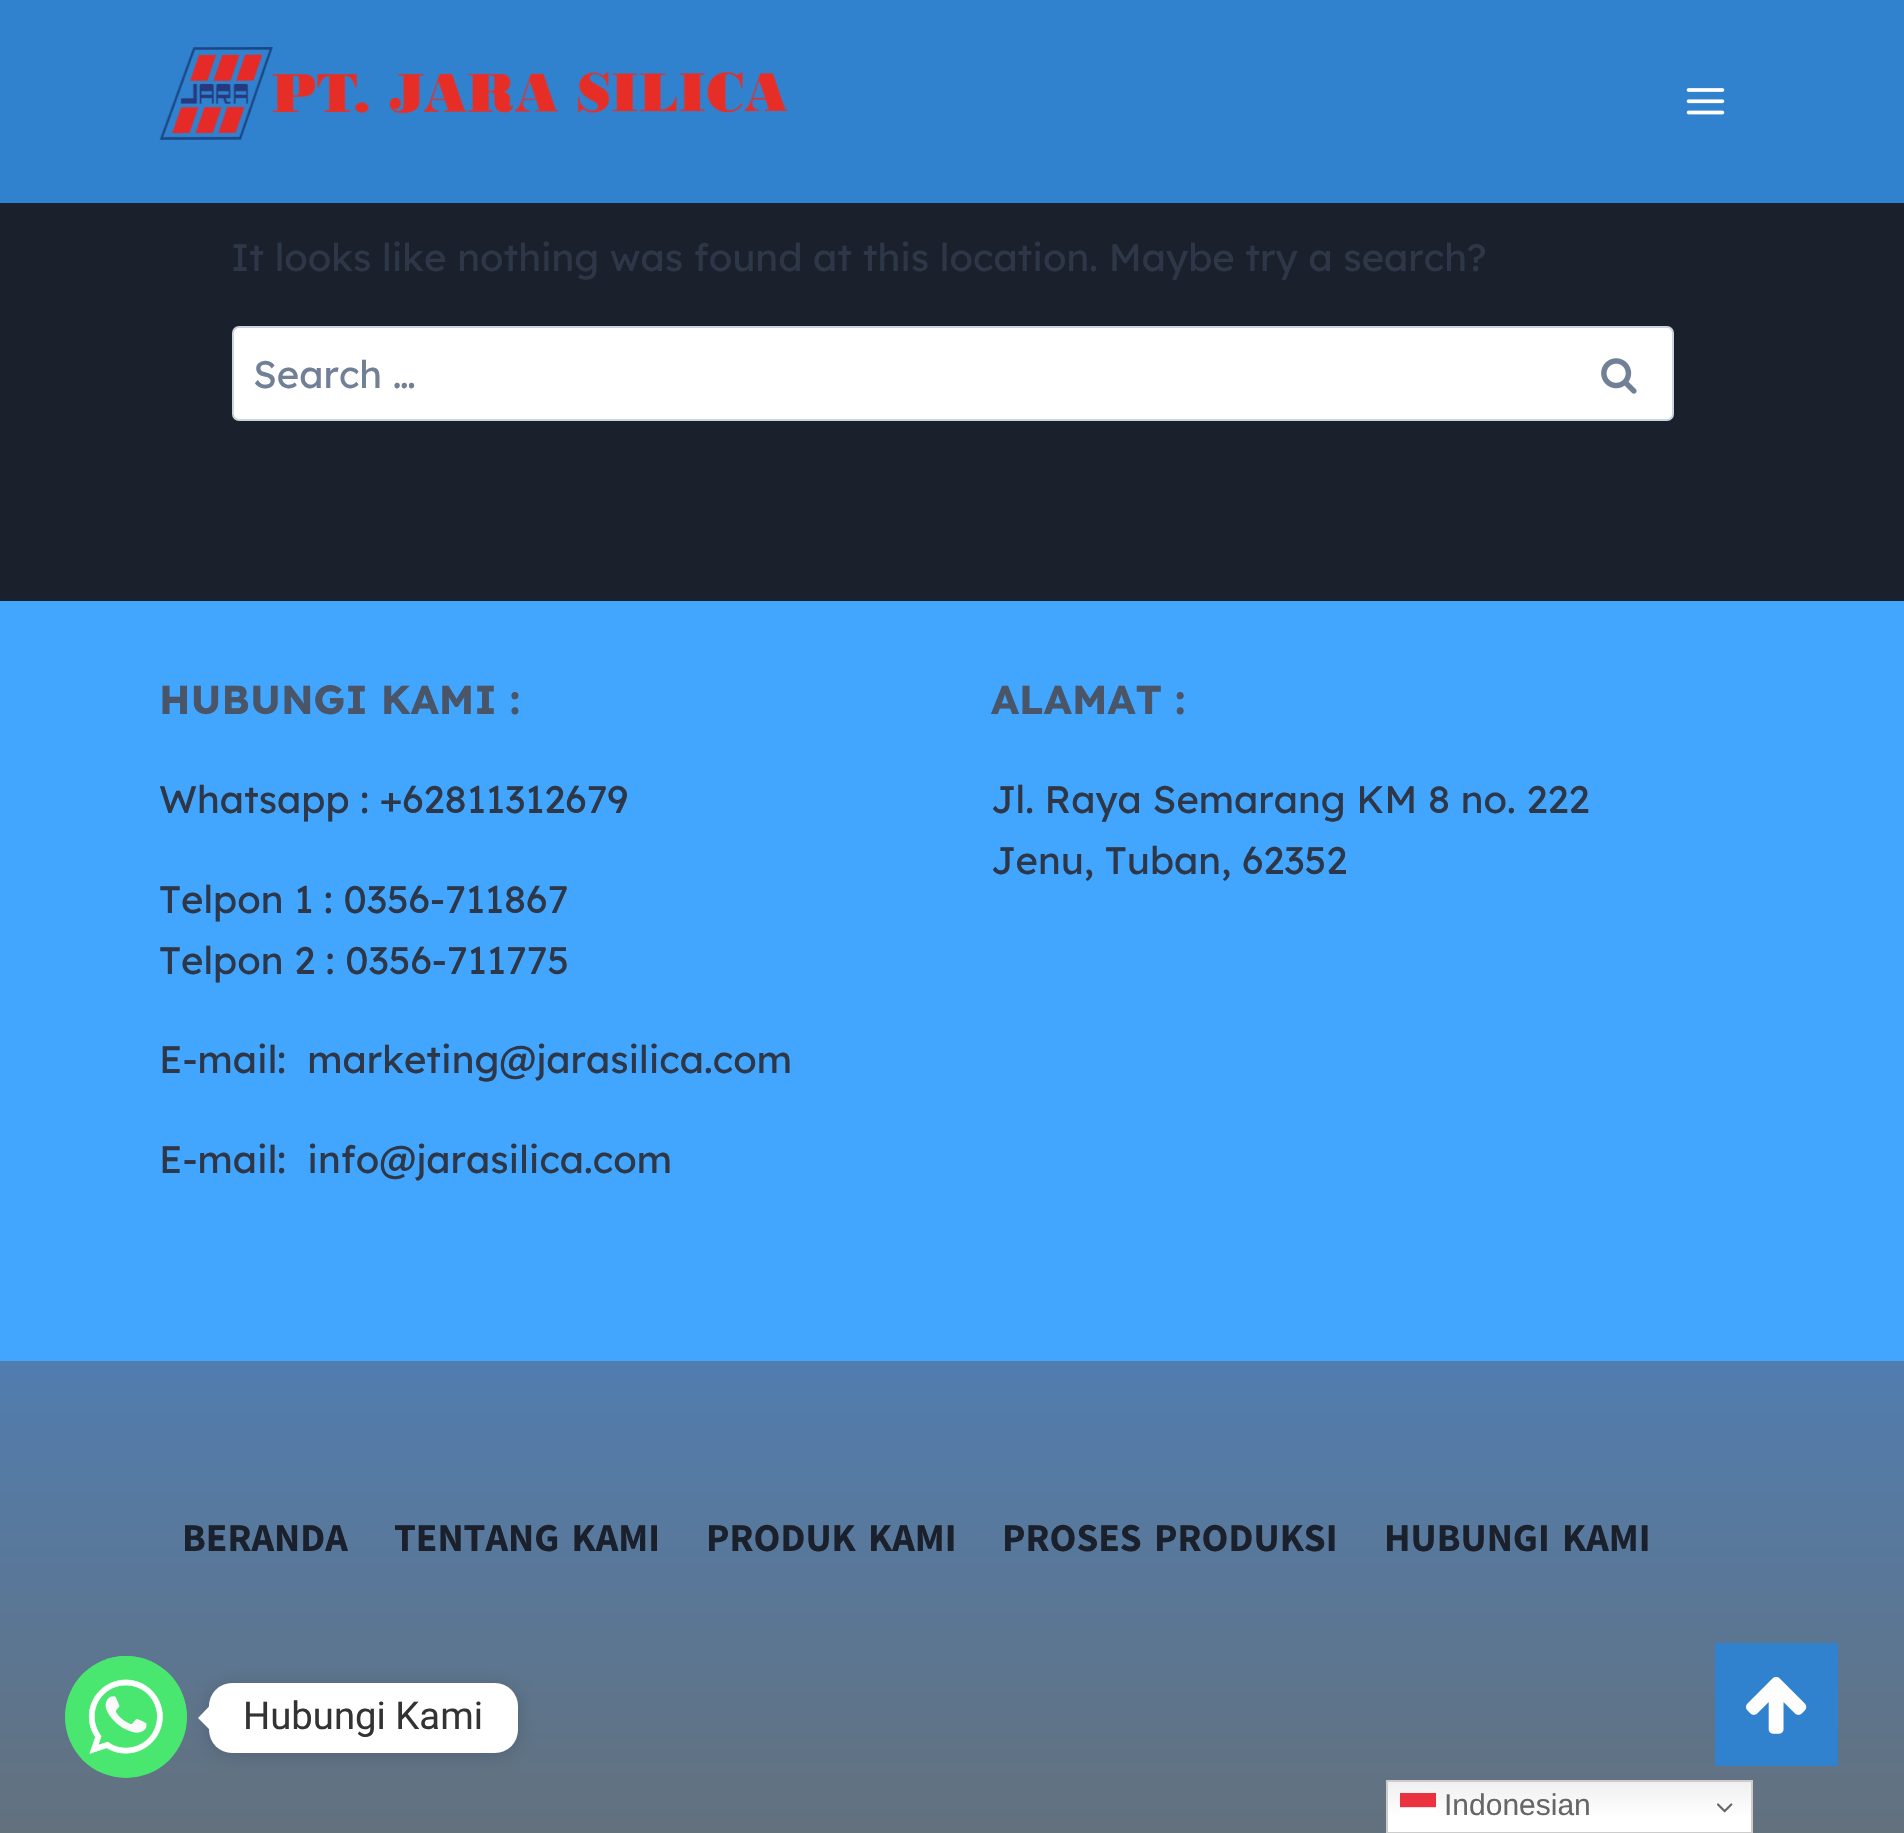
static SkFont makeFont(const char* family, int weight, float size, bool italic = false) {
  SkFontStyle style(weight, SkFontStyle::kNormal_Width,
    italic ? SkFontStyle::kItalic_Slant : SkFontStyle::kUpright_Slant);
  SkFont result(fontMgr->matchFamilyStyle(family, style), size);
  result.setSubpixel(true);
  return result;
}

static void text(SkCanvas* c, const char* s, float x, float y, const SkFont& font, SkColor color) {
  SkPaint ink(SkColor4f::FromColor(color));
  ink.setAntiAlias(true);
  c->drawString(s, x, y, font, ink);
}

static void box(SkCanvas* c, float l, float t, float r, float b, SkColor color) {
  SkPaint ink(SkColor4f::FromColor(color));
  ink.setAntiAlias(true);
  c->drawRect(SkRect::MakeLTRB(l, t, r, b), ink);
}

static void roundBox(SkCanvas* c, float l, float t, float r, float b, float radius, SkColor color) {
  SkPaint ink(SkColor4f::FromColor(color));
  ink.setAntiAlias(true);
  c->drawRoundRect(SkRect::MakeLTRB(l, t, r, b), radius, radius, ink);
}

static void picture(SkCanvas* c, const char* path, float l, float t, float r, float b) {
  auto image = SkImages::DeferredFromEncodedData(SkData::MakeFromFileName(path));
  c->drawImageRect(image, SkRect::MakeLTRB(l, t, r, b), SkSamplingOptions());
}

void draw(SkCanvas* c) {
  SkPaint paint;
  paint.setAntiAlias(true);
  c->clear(0xff1a202c);
  box(c, 0, 0, 1904, 203, 0xff3182ce);
  picture(c, "img_01.png", 159, 47, 788, 140);
  picture(c, "img_02.png", 1686, 88, 1725, 115);
  SkFont face1 = makeFont("Lexend", 400, 38.25f);
  text(c, "It looks like nothing was found at this location. Maybe try a search?", 231, 271, face1, 0xff2d3748);
  paint.setColor(0xffffffff);
  c->drawRoundRect(SkRect::MakeLTRB(233, 327, 1673, 420), 6, 6, paint);
  paint.setStyle(SkPaint::kStroke_Style);
  paint.setStrokeWidth(2);
  paint.setColor(0xffcbd5e0);
  c->drawRoundRect(SkRect::MakeLTRB(233, 327, 1673, 420), 6, 6, paint);
  text(c, "Search …", 253, 388, face1, 0xff718096);
  picture(c, "img_03.png", 1601, 358, 1637, 394);
  paint.setStyle(SkPaint::kFill_Style);
  {
    const SkColor colors[] = {0xff696d6d, 0xff3490ff};
    const float stops[] = {0, 1};
    const SkPoint ends[] = {{953, 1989}, {953, 601}};
    paint.setShader(SkGradientShader::MakeLinear(ends, colors, stops, 2, SkTileMode::kClamp));
    paint.setAlpha(255);
  }
  c->drawRect(SkRect::MakeLTRB(0, 1361, 1904, 1833), paint);
  box(c, 0, 601, 1904, 1361, 0xff42a6ff);
  SkFont face2 = makeFont("Lexend", 700, 40.5f);
  text(c, "HUBUNGI KAMI :", 159, 714, face2, 0xff4a5568);
  text(c, "Whatsapp : +62811312679", 159, 813, face1, 0xff2d3748);
  text(c, "Telpon 1 : 0356-711867", 159, 913, face1, 0xff2d3748);
  text(c, "Telpon 2 : 0356-711775", 159, 974, face1, 0xff2d3748);
  text(c, "E-mail:  marketing@jarasilica.com", 159, 1073, face1, 0xff2d3748);
  text(c, "E-mail:  info@jarasilica.com", 159, 1173, face1, 0xff2d3748);
  text(c, "ALAMAT :", 991, 714, face2, 0xff4a5568);
  text(c, "Jl. Raya Semarang KM 8 no. 222", 991, 813, face1, 0xff2d3748);
  text(c, "Jenu, Tuban, 62352", 991, 874, face1, 0xff2d3748);
  SkFont face3 = makeFont("Akatab", 900, 38.25f);
  text(c, "BERANDA", 182, 1551, face3, 0xff1a202c);
  text(c, "TENTANG KAMI", 394, 1551, face3, 0xff1a202c);
  text(c, "PRODUK KAMI", 706, 1551, face3, 0xff1a202c);
  text(c, "PROSES PRODUKSI", 1002, 1551, face3, 0xff1a202c);
  text(c, "HUBUNGI KAMI", 1384, 1551, face3, 0xff1a202c);
  paint.setShader(nullptr);
  paint.setColor(0xff49e670);
  c->drawCircle(126, 1717, 61, paint);
  picture(c, "img_04.png", 65, 1656, 187, 1754);
  paint.setColor(0x26000000);
  paint.setMaskFilter(SkMaskFilter::MakeBlur(kNormal_SkBlurStyle, 8.5f));
  c->drawRoundRect(SkRect::MakeLTRB(209, 1685, 518, 1755), 23, 23, paint);
  paint.setMaskFilter(nullptr);
  roundBox(c, 209, 1683, 518, 1753, 23, 0xffffffff);
  paint.setColor(0xffffffff);
  c->drawPath(SkPathBuilder().moveTo(209, 1706.5f).lineTo(209, 1729).lineTo(198, 1718).close().detach(), paint);
  SkFont face4 = makeFont("Roboto", 400, 38.25f);
  text(c, "Hubungi Kami", 243, 1729, face4, 0xff333333);
  box(c, 1715, 1643, 1838, 1766, 0xff3182ce);
  picture(c, "img_05.png", 1746, 1676, 1807, 1734);
  {
    const SkColor colors[] = {0xffefefef, 0xffffffff};
    const float stops[] = {0, 0.7f};
    const SkPoint ends[] = {{1569, 1780}, {1569, 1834}};
    paint.setShader(SkGradientShader::MakeLinear(ends, colors, stops, 2, SkTileMode::kClamp));
    paint.setAlpha(255);
  }
  c->drawRect(SkRect::MakeLTRB(1388, 1782, 1751, 1832), paint);
  {
    const SkColor colors[] = {0xfffcfcfc, 0xffffffff};
    const float stops[] = {0, 0.7f};
    const SkPoint ends[] = {{1569, 1780}, {1569, 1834}};
    paint.setShader(SkGradientShader::MakeLinear(ends, colors, stops, 2, SkTileMode::kClamp));
    paint.setAlpha(255);
  }
  c->drawRect(SkRect::MakeLTRB(1400, 1808, 1436, 1812), paint);
  {
    const SkColor colors[] = {0xffe9303d, 0xffec3341};
    const float stops[] = {0, 0.7f};
    const SkPoint ends[] = {{1569, 1780}, {1569, 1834}};
    paint.setShader(SkGradientShader::MakeLinear(ends, colors, stops, 2, SkTileMode::kClamp));
    paint.setAlpha(255);
  }
  c->drawRect(SkRect::MakeLTRB(1400, 1793, 1436, 1807), paint);
  {
    const SkColor colors[] = {0xfffbd6d8, 0xfffbd6d9};
    const float stops[] = {0, 0.7f};
    const SkPoint ends[] = {{1569, 1780}, {1569, 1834}};
    paint.setShader(SkGradientShader::MakeLinear(ends, colors, stops, 2, SkTileMode::kClamp));
    paint.setAlpha(255);
  }
  c->drawRect(SkRect::MakeLTRB(1400, 1807, 1436, 1808), paint);
  paint.setStyle(SkPaint::kStroke_Style);
  paint.setShader(nullptr);
  paint.setColor(0xffcccccc);
  c->drawRect(SkRect::MakeLTRB(1387, 1781, 1752, 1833), paint);
  SkFont face5 = makeFont("Liberation Sans", 400, 30);
  text(c, "Indonesian", 1444, 1815, face5, 0xff666666);
  picture(c, "img_06.png", 1717, 1803, 1733, 1813);
}
